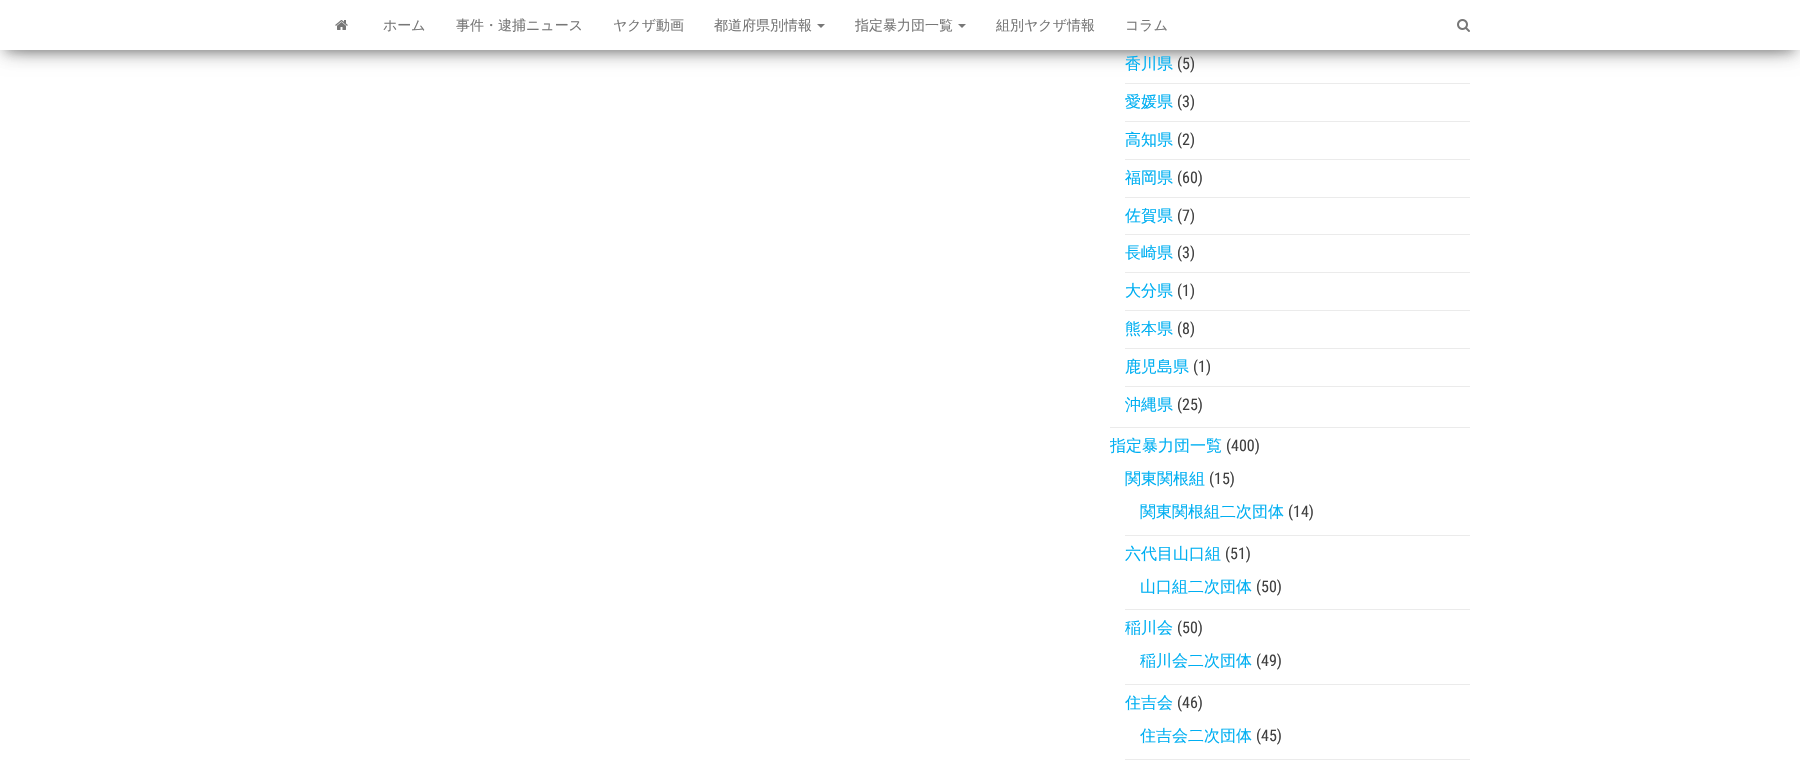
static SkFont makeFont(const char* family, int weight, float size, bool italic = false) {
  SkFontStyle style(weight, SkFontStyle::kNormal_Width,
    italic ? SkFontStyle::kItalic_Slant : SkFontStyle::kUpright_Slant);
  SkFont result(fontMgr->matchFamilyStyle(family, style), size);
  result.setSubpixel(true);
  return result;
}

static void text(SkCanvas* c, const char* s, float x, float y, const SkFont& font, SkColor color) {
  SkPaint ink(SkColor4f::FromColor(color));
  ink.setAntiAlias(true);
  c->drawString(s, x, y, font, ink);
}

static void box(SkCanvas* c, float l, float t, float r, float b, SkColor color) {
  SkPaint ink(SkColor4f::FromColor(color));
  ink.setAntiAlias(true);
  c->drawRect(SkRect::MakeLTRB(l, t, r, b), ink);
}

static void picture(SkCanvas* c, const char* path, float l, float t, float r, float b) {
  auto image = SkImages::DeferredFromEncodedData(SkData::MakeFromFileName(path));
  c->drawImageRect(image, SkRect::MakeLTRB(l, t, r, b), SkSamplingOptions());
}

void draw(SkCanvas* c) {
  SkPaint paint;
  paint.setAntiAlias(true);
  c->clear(0xffffffff);
  paint.setColor(0x33000000);
  paint.setMaskFilter(SkMaskFilter::MakeBlur(kNormal_SkBlurStyle, 5));
  c->drawRect(SkRect::MakeLTRB(5, 13, 1795, 53), paint);
  paint.setMaskFilter(nullptr);
  box(c, 1125, 83, 1470, 84, 0xffebebeb);
  paint.setColor(0x1f000000);
  paint.setMaskFilter(SkMaskFilter::MakeBlur(kNormal_SkBlurStyle, 10));
  c->drawRect(SkRect::MakeLTRB(0, 3, 1800, 53), paint);
  paint.setMaskFilter(nullptr);
  paint.setColor(0x6b000000);
  paint.setMaskFilter(SkMaskFilter::MakeBlur(kNormal_SkBlurStyle, 10));
  c->drawRect(SkRect::MakeLTRB(12, 22, 1788, 48), paint);
  paint.setMaskFilter(nullptr);
  box(c, 0, 0, 1800, 50, 0xffffffff);
  picture(c, "img_01.png", 335, 20, 348, 30);
  SkFont face1 = makeFont("WenQuanYi Zen Hei", 500, 14);
  text(c, "ホーム", 383, 30, face1, 0xff777777);
  text(c, "事件・逮捕ニュース", 456, 30, face1, 0xff777777);
  text(c, "ヤクザ動画", 613, 30, face1, 0xff777777);
  text(c, "都道府県別情報", 714, 30, face1, 0xff777777);
  paint.setColor(0xff777777);
  c->drawPath(SkPathBuilder().moveTo(817, 24).lineTo(825, 24).lineTo(821, 28).close().detach(), paint);
  text(c, "指定暴力団一覧", 855, 30, face1, 0xff777777);
  c->drawPath(SkPathBuilder().moveTo(958, 24).lineTo(966, 24).lineTo(962, 28).close().detach(), paint);
  text(c, "組別ヤクザ情報", 996, 30, face1, 0xff777777);
  text(c, "コラム", 1125, 30, face1, 0xff777777);
  picture(c, "img_02.png", 1457, 19, 1470, 32);
  box(c, 1110, 427, 1470, 428, 0xffebebeb);
  SkFont face2 = makeFont("WenQuanYi Zen Hei", 500, 16);
  text(c, "香川県", 1125, 69, face2, 0xff00aff2);
  SkFont face3 = makeFont("Roboto Condensed", 400, 16);
  text(c, "(5)", 1177, 69, face3, 0xff404040);
  box(c, 1125, 121, 1470, 122, 0xffebebeb);
  text(c, "愛媛県", 1125, 107, face2, 0xff00aff2);
  text(c, "(3)", 1177, 107, face3, 0xff404040);
  box(c, 1125, 159, 1470, 160, 0xffebebeb);
  text(c, "高知県", 1125, 145, face2, 0xff00aff2);
  text(c, "(2)", 1177, 145, face3, 0xff404040);
  box(c, 1125, 197, 1470, 198, 0xffebebeb);
  text(c, "福岡県", 1125, 183, face2, 0xff00aff2);
  text(c, "(60)", 1177, 183, face3, 0xff404040);
  box(c, 1125, 234, 1470, 235, 0xffebebeb);
  text(c, "佐賀県", 1125, 221, face2, 0xff00aff2);
  text(c, "(7)", 1177, 221, face3, 0xff404040);
  box(c, 1125, 272, 1470, 273, 0xffebebeb);
  text(c, "長崎県", 1125, 258, face2, 0xff00aff2);
  text(c, "(3)", 1177, 258, face3, 0xff404040);
  box(c, 1125, 310, 1470, 311, 0xffebebeb);
  text(c, "大分県", 1125, 296, face2, 0xff00aff2);
  text(c, "(1)", 1177, 296, face3, 0xff404040);
  box(c, 1125, 348, 1470, 349, 0xffebebeb);
  text(c, "熊本県", 1125, 334, face2, 0xff00aff2);
  text(c, "(8)", 1177, 334, face3, 0xff404040);
  box(c, 1125, 386, 1470, 387, 0xffebebeb);
  text(c, "鹿児島県", 1125, 372, face2, 0xff00aff2);
  text(c, "(1)", 1193, 372, face3, 0xff404040);
  text(c, "沖縄県", 1125, 410, face2, 0xff00aff2);
  text(c, "(25)", 1177, 410, face3, 0xff404040);
  text(c, "指定暴力団一覧", 1110, 451, face2, 0xff00aff2);
  text(c, "(400)", 1226, 451, face3, 0xff404040);
  box(c, 1125, 535, 1470, 536, 0xffebebeb);
  text(c, "関東関根組", 1125, 484, face2, 0xff00aff2);
  text(c, "(15)", 1209, 484, face3, 0xff404040);
  text(c, "関東関根組二次団体", 1140, 517, face2, 0xff00aff2);
  text(c, "(14)", 1288, 517, face3, 0xff404040);
  box(c, 1125, 609, 1470, 610, 0xffebebeb);
  text(c, "六代目山口組", 1125, 559, face2, 0xff00aff2);
  text(c, "(51)", 1225, 559, face3, 0xff404040);
  text(c, "山口組二次団体", 1140, 592, face2, 0xff00aff2);
  text(c, "(50)", 1256, 592, face3, 0xff404040);
  box(c, 1125, 684, 1470, 685, 0xffebebeb);
  text(c, "稲川会", 1125, 633, face2, 0xff00aff2);
  text(c, "(50)", 1177, 633, face3, 0xff404040);
  text(c, "稲川会二次団体", 1140, 666, face2, 0xff00aff2);
  text(c, "(49)", 1256, 666, face3, 0xff404040);
  box(c, 1125, 759, 1470, 760, 0xffebebeb);
  text(c, "住吉会", 1125, 708, face2, 0xff00aff2);
  text(c, "(46)", 1177, 708, face3, 0xff404040);
  text(c, "住吉会二次団体", 1140, 741, face2, 0xff00aff2);
  text(c, "(45)", 1256, 741, face3, 0xff404040);
}
